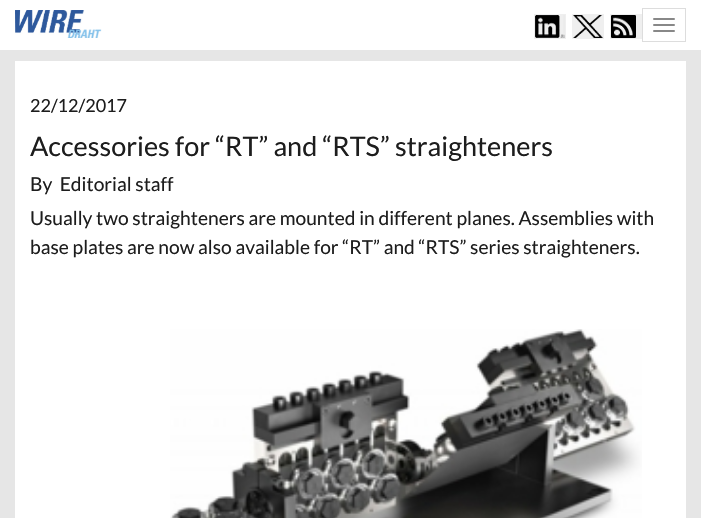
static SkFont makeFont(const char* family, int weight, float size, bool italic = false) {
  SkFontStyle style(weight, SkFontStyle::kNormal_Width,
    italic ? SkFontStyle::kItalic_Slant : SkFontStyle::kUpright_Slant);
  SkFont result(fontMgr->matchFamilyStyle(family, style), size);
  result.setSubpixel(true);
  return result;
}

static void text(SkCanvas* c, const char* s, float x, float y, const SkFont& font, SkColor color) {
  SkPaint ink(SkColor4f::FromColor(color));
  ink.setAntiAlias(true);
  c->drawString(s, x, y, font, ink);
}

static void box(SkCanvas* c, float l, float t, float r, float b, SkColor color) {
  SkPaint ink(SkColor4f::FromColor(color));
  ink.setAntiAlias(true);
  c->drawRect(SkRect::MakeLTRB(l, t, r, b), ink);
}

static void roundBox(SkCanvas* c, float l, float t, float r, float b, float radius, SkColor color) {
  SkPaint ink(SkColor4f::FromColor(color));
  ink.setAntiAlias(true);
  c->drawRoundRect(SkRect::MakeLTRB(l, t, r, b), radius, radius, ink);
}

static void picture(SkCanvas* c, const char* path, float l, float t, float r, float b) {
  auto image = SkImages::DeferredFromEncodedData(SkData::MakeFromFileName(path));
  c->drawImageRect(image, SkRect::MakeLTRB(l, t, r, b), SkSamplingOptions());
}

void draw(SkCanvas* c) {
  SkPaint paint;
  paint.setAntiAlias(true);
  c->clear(0xffe6e6e6);
  box(c, 0, 0, 701, 50, 0xffffffff);
  picture(c, "img_01.png", 15, 10, 102, 38);
  box(c, 534, 14, 566, 39, 0xffefefef);
  picture(c, "img_02.png", 535, 15, 565, 38);
  box(c, 572, 14, 604, 39, 0xffefefef);
  picture(c, "img_03.png", 573, 15, 603, 38);
  box(c, 610, 14, 642, 39, 0xffefefef);
  picture(c, "img_04.png", 611, 15, 636, 38);
  paint.setStyle(SkPaint::kStroke_Style);
  paint.setStrokeWidth(1);
  paint.setColor(0xffdddddd);
  c->drawRect(SkRect::MakeLTRB(642.5f, 8.5f, 685.5f, 41.5f), paint);
  roundBox(c, 653, 18, 675, 20, 1, 0xff888888);
  roundBox(c, 653, 24, 675, 26, 1, 0xff888888);
  roundBox(c, 653, 30, 675, 32, 1, 0xff888888);
  box(c, 15, 61, 686, 518, 0xffffffff);
  SkFont face1 = makeFont("Lato", 400, 18);
  text(c, "22/12/2017", 30, 112, face1, 0xff1d1d1d);
  SkFont face2 = makeFont("Lato", 400, 27);
  text(c, "Accessories for “RT” and “RTS” straighteners", 30, 156, face2, 0xff1d1d1d);
  SkFont face3 = makeFont("Lato", 400, 19.2f);
  text(c, "By  Editorial staff", 30, 191, face3, 0xff1d1d1d);
  text(c, "Usually two straighteners are mounted in different planes. Assemblies with", 30, 225, face3, 0xff1d1d1d);
  text(c, "base plates are now also available for “RT” and “RTS” series straighteners.", 30, 254, face3, 0xff1d1d1d);
  picture(c, "img_05.png", 170, 329, 642, 518);
}
